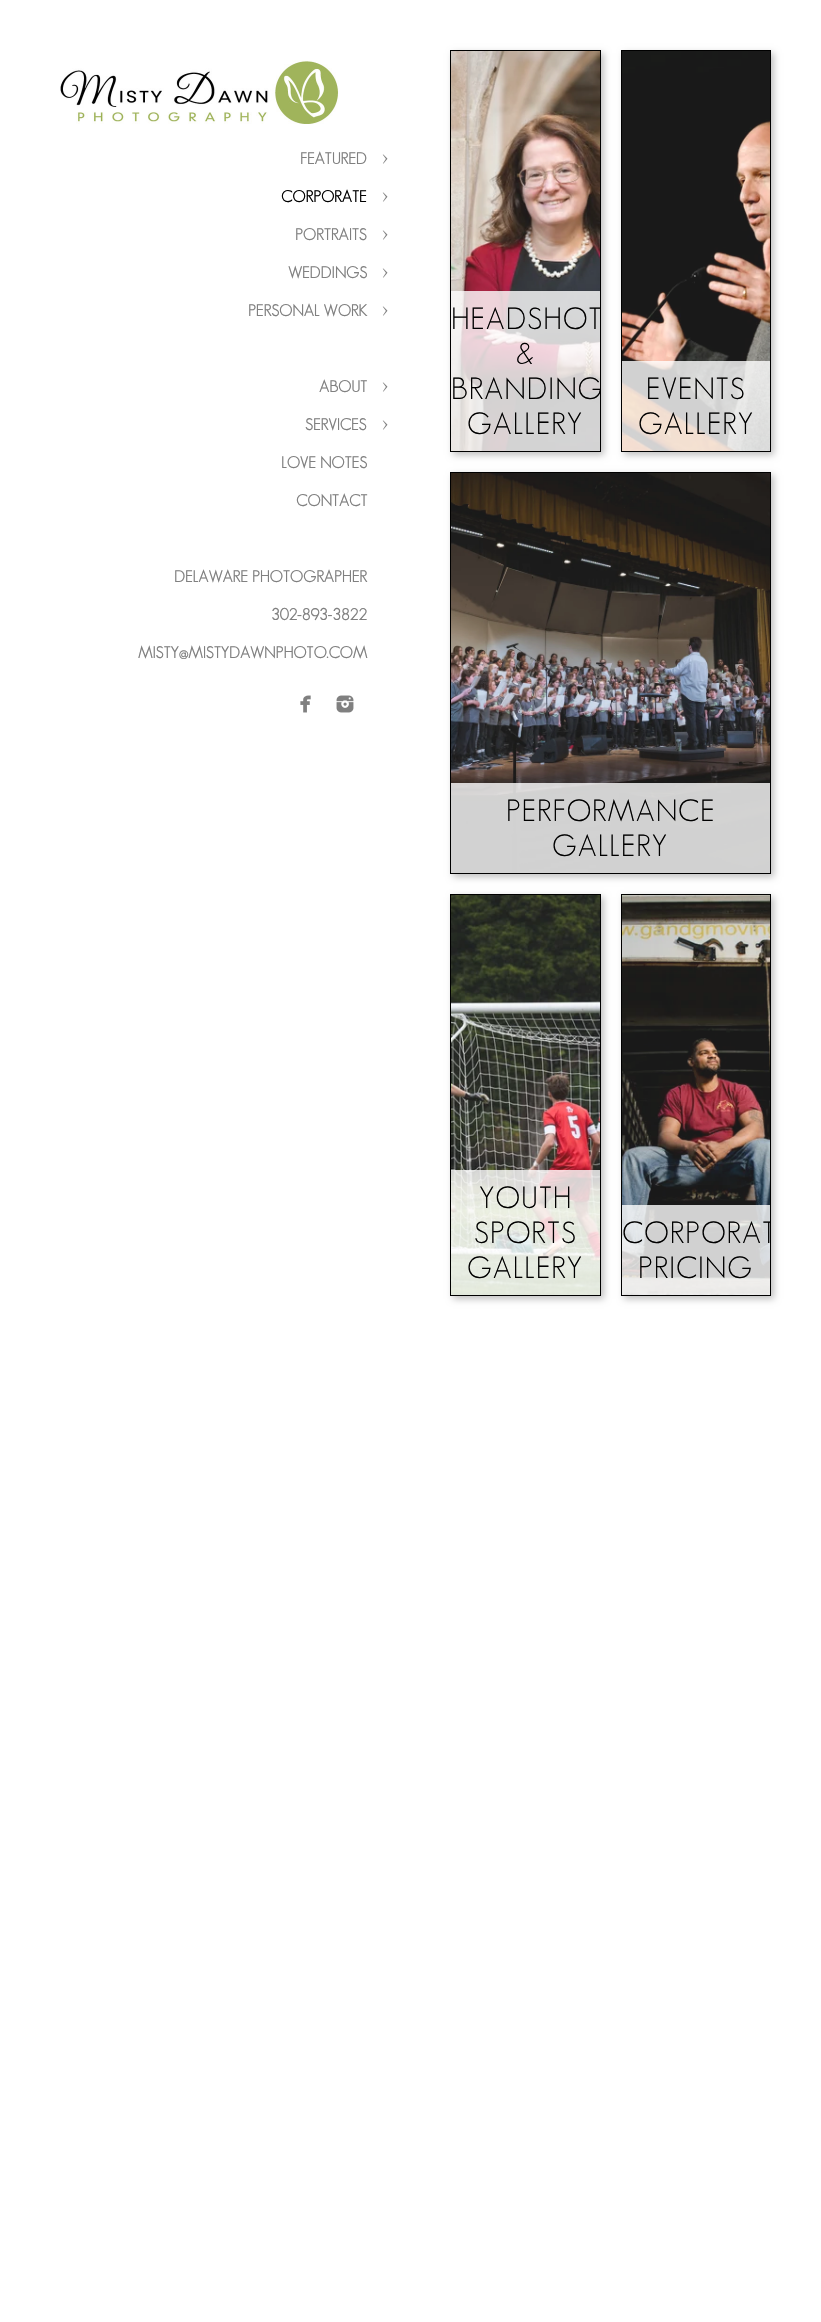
static SkFont makeFont(const char* family, int weight, float size, bool italic = false) {
  SkFontStyle style(weight, SkFontStyle::kNormal_Width,
    italic ? SkFontStyle::kItalic_Slant : SkFontStyle::kUpright_Slant);
  SkFont result(fontMgr->matchFamilyStyle(family, style), size);
  result.setSubpixel(true);
  return result;
}

static void text(SkCanvas* c, const char* s, float x, float y, const SkFont& font, SkColor color) {
  SkPaint ink(SkColor4f::FromColor(color));
  ink.setAntiAlias(true);
  c->drawString(s, x, y, font, ink);
}

static void spacedText(SkCanvas* c, const char* s, float x, float y, const SkFont& font, const SkPaint& ink, float letter, float word) {
  std::vector<SkGlyphID> glyphs(font.countText(s, strlen(s), SkTextEncoding::kUTF8));
  std::vector<float> xs(glyphs.size());
  font.textToGlyphs(s, strlen(s), SkTextEncoding::kUTF8, glyphs);
  font.getXPos(glyphs, xs, x);
  float extra = 0;
  for (size_t i = 0; i < glyphs.size(); i++) {
    xs[i] += extra;
    extra += letter + word * (glyphs[i] == font.unicharToGlyph(' '));
  }
  c->drawTextBlob(SkTextBlob::MakeFromPosHGlyphs(glyphs, xs, y, font), 0, 0, ink);
}

static void box(SkCanvas* c, float l, float t, float r, float b, SkColor color) {
  SkPaint ink(SkColor4f::FromColor(color));
  ink.setAntiAlias(true);
  c->drawRect(SkRect::MakeLTRB(l, t, r, b), ink);
}

static void picture(SkCanvas* c, const char* path, float l, float t, float r, float b) {
  auto image = SkImages::DeferredFromEncodedData(SkData::MakeFromFileName(path));
  c->drawImageRect(image, SkRect::MakeLTRB(l, t, r, b), SkSamplingOptions());
}

void draw(SkCanvas* c) {
  SkPaint paint;
  paint.setAntiAlias(true);
  c->clear(0xffffffff);
  picture(c, "img_01.png", 60, 60, 339, 124);
  SkFont face1 = makeFont("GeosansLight", 700, 16);
  text(c, "FEATURED", 300, 164, face1, 0xff808080);
  picture(c, "img_02.png", 382, 154, 388, 164);
  text(c, "CORPORATE", 281, 202, face1, 0xff000000);
  picture(c, "img_02.png", 382, 192, 388, 202);
  text(c, "PORTRAITS", 295, 240, face1, 0xff808080);
  picture(c, "img_02.png", 382, 230, 388, 240);
  text(c, "WEDDINGS", 288, 278, face1, 0xff808080);
  picture(c, "img_02.png", 382, 268, 388, 278);
  text(c, "PERSONAL WORK", 248, 316, face1, 0xff808080);
  picture(c, "img_02.png", 382, 306, 388, 316);
  text(c, "ABOUT", 319, 392, face1, 0xff808080);
  picture(c, "img_02.png", 382, 382, 388, 392);
  text(c, "SERVICES", 305, 430, face1, 0xff808080);
  picture(c, "img_02.png", 382, 420, 388, 430);
  text(c, "LOVE NOTES", 281, 468, face1, 0xff808080);
  text(c, "CONTACT", 296, 506, face1, 0xff808080);
  text(c, "DELAWARE PHOTOGRAPHER", 174, 582, face1, 0xff808080);
  text(c, "302-893-3822", 271, 620, face1, 0xff808080);
  text(c, "MISTY@MISTYDAWNPHOTO.COM", 138, 658, face1, 0xff808080);
  picture(c, "img_03.png", 300, 695, 311, 713);
  picture(c, "img_04.png", 336, 695, 354, 713);
  c->save();
  c->clipPath(SkPathBuilder(SkPathFillType::kEvenOdd).moveTo(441, 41).lineTo(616, 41).lineTo(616, 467).lineTo(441, 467).close().moveTo(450, 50).lineTo(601, 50).lineTo(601, 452).lineTo(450, 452).close().detach(), true);
  paint.setColor(0x40000000);
  paint.setMaskFilter(SkMaskFilter::MakeBlur(kNormal_SkBlurStyle, 3.5f));
  c->drawRect(SkRect::MakeLTRB(453, 53, 604, 455), paint);
  paint.setMaskFilter(nullptr);
  c->restore();
  paint.setStyle(SkPaint::kStroke_Style);
  paint.setStrokeWidth(1);
  paint.setColor(0xff000000);
  c->drawRect(SkRect::MakeLTRB(450.5f, 50.5f, 600.5f, 451.5f), paint);
  picture(c, "img_05.png", 451, 51, 600, 451);
  box(c, 451, 291, 600, 451, 0xccffffff);
  SkFont face2 = makeFont("GeosansLight", 300, 30);
  paint.setStyle(SkPaint::kFill_Style);
  spacedText(c, "HEADSHOT", 451, 329, face2, paint, 1, 0);
  spacedText(c, "&", 516, 364, face2, paint, 1, 0);
  c->save();
  c->clipRect(SkRect::MakeLTRB(451, 51, 600, 451));
  spacedText(c, "BRANDING", 451, 399, face2, paint, 1, 0);
  c->restore();
  spacedText(c, "GALLERY", 467, 434, face2, paint, 1, 0);
  c->save();
  c->clipPath(SkPathBuilder(SkPathFillType::kEvenOdd).moveTo(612, 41).lineTo(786, 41).lineTo(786, 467).lineTo(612, 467).close().moveTo(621, 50).lineTo(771, 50).lineTo(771, 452).lineTo(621, 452).close().detach(), true);
  paint.setColor(0x40000000);
  paint.setMaskFilter(SkMaskFilter::MakeBlur(kNormal_SkBlurStyle, 3.5f));
  c->drawRect(SkRect::MakeLTRB(624, 53, 774, 455), paint);
  paint.setMaskFilter(nullptr);
  c->restore();
  paint.setStyle(SkPaint::kStroke_Style);
  paint.setColor(0xff000000);
  c->drawRect(SkRect::MakeLTRB(621.5f, 50.5f, 770.5f, 451.5f), paint);
  picture(c, "img_06.png", 622, 51, 770, 451);
  box(c, 622, 361, 770, 451, 0xccffffff);
  paint.setStyle(SkPaint::kFill_Style);
  spacedText(c, "EVENTS", 646, 399, face2, paint, 1, 0);
  spacedText(c, "GALLERY", 638, 434, face2, paint, 1, 0);
  c->save();
  c->clipPath(SkPathBuilder(SkPathFillType::kEvenOdd).moveTo(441, 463).lineTo(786, 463).lineTo(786, 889).lineTo(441, 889).close().moveTo(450, 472).lineTo(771, 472).lineTo(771, 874).lineTo(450, 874).close().detach(), true);
  paint.setColor(0x40000000);
  paint.setMaskFilter(SkMaskFilter::MakeBlur(kNormal_SkBlurStyle, 3.5f));
  c->drawRect(SkRect::MakeLTRB(453, 475, 774, 877), paint);
  paint.setMaskFilter(nullptr);
  c->restore();
  paint.setStyle(SkPaint::kStroke_Style);
  paint.setColor(0xff000000);
  c->drawRect(SkRect::MakeLTRB(450.5f, 472.5f, 770.5f, 873.5f), paint);
  picture(c, "img_07.png", 451, 473, 770, 873);
  box(c, 451, 783, 770, 873, 0xccffffff);
  paint.setStyle(SkPaint::kFill_Style);
  spacedText(c, "PERFORMANCE", 506, 821, face2, paint, 1, 0);
  spacedText(c, "GALLERY", 552, 856, face2, paint, 1, 0);
  c->save();
  c->clipPath(SkPathBuilder(SkPathFillType::kEvenOdd).moveTo(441, 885).lineTo(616, 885).lineTo(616, 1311).lineTo(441, 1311).close().moveTo(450, 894).lineTo(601, 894).lineTo(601, 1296).lineTo(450, 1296).close().detach(), true);
  paint.setColor(0x40000000);
  paint.setMaskFilter(SkMaskFilter::MakeBlur(kNormal_SkBlurStyle, 3.5f));
  c->drawRect(SkRect::MakeLTRB(453, 897, 604, 1299), paint);
  paint.setMaskFilter(nullptr);
  c->restore();
  paint.setStyle(SkPaint::kStroke_Style);
  paint.setColor(0xff000000);
  c->drawRect(SkRect::MakeLTRB(450.5f, 894.5f, 600.5f, 1295.5f), paint);
  picture(c, "img_08.png", 451, 895, 600, 1295);
  box(c, 451, 1170, 600, 1295, 0xccffffff);
  paint.setStyle(SkPaint::kFill_Style);
  spacedText(c, "YOUTH", 479, 1208, face2, paint, 1, 0);
  spacedText(c, "SPORTS", 474, 1243, face2, paint, 1, 0);
  spacedText(c, "GALLERY", 467, 1278, face2, paint, 1, 0);
  c->save();
  c->clipPath(SkPathBuilder(SkPathFillType::kEvenOdd).moveTo(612, 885).lineTo(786, 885).lineTo(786, 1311).lineTo(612, 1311).close().moveTo(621, 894).lineTo(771, 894).lineTo(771, 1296).lineTo(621, 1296).close().detach(), true);
  paint.setColor(0x40000000);
  paint.setMaskFilter(SkMaskFilter::MakeBlur(kNormal_SkBlurStyle, 3.5f));
  c->drawRect(SkRect::MakeLTRB(624, 897, 774, 1299), paint);
  paint.setMaskFilter(nullptr);
  c->restore();
  paint.setStyle(SkPaint::kStroke_Style);
  paint.setColor(0xff000000);
  c->drawRect(SkRect::MakeLTRB(621.5f, 894.5f, 770.5f, 1295.5f), paint);
  picture(c, "img_09.png", 622, 895, 770, 1295);
  box(c, 622, 1205, 770, 1295, 0xccffffff);
  c->save();
  c->clipRect(SkRect::MakeLTRB(622, 895, 770, 1295));
  paint.setStyle(SkPaint::kFill_Style);
  spacedText(c, "CORPORAT", 622, 1243, face2, paint, 1, 0);
  c->restore();
  spacedText(c, "PRICING", 638, 1278, face2, paint, 1, 0);
}
